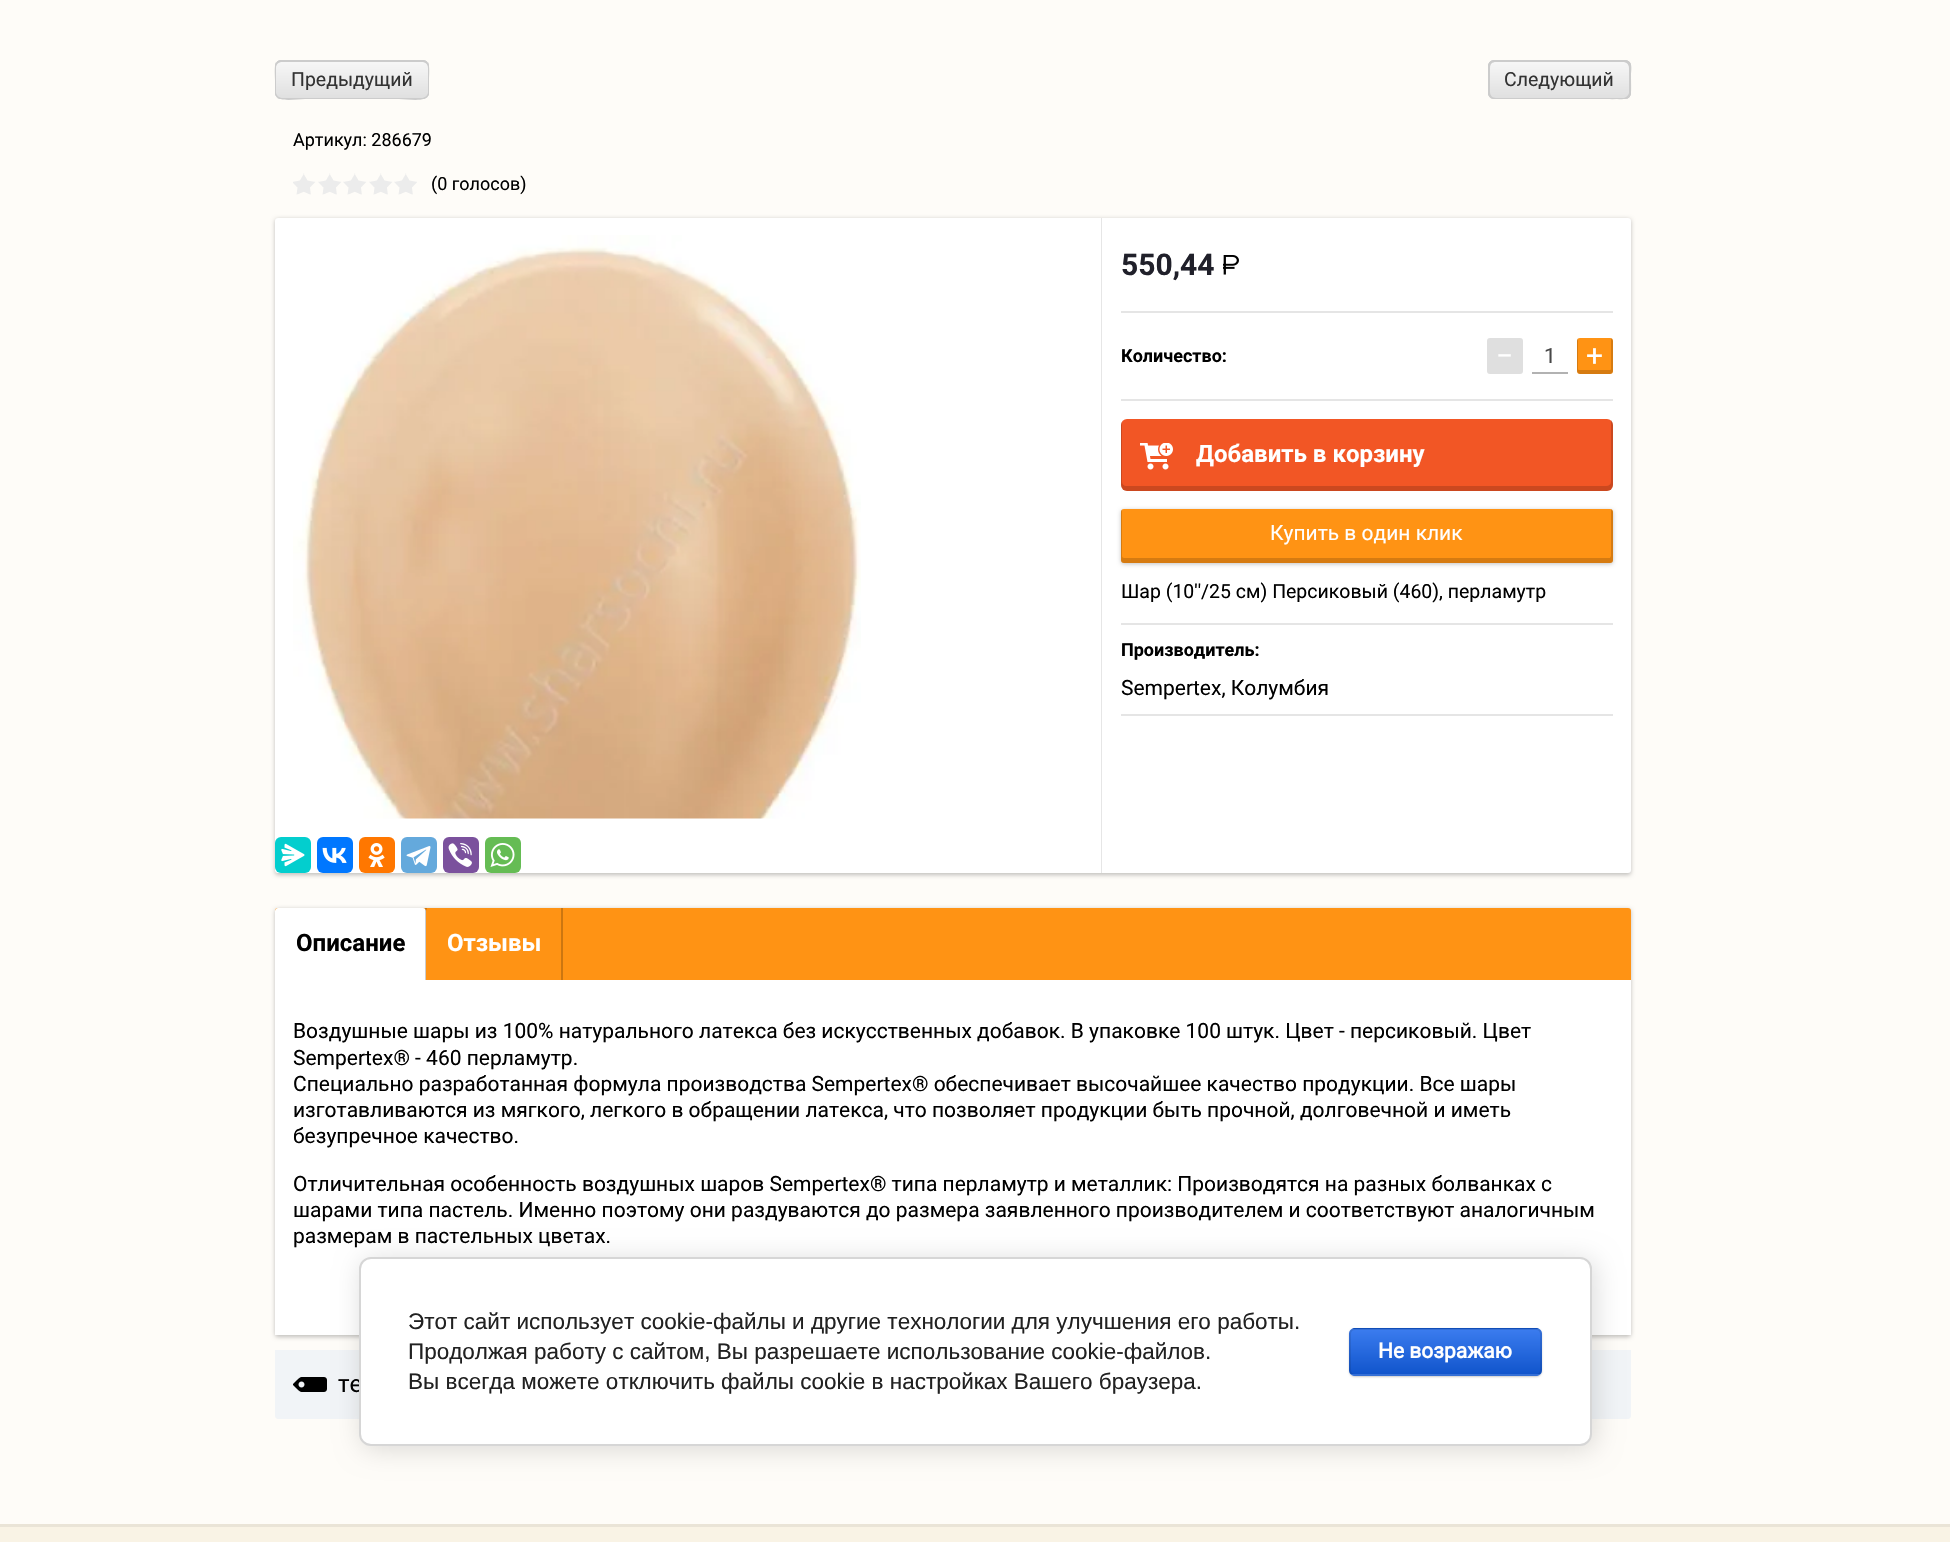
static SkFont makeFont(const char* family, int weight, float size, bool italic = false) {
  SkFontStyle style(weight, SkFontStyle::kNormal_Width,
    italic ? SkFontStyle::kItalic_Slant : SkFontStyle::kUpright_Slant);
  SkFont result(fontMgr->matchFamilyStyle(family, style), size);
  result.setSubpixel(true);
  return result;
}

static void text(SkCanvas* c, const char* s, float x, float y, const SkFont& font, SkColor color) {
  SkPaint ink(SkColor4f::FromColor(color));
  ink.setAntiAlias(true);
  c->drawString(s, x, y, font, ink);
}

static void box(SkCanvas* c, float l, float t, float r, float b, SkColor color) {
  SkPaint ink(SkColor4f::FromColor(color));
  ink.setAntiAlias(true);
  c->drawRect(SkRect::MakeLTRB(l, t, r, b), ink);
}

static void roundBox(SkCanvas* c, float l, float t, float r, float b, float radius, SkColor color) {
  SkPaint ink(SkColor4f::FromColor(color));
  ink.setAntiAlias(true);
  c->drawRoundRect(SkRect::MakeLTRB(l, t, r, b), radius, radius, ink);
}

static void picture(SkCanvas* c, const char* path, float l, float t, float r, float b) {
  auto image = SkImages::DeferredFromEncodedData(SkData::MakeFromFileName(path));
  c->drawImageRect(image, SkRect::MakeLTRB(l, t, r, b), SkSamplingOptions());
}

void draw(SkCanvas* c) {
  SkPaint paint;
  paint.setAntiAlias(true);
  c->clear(0xfffefcf8);
  {
    const SkColor colors[] = {0xfff8f8f8, 0xffdfdfdf};
    const float stops[] = {0, 1};
    const SkPoint ends[] = {{352, 60}, {352, 99}};
    paint.setShader(SkGradientShader::MakeLinear(ends, colors, stops, 2, SkTileMode::kClamp));
    paint.setAlpha(255);
  }
  c->drawRoundRect(SkRect::MakeLTRB(275, 60, 429, 99), 6, 6, paint);
  paint.setShader(nullptr);
  paint.setColor(0xffcccccc);
  c->drawPath(SkPathBuilder().moveTo(276, 62).cubicTo(274, 66, 275, 76, 275, 80).lineTo(275, 94).cubicTo(277, 103, 296, 99, 305, 99).lineTo(424, 99).lineTo(427, 97).lineTo(424, 98).lineTo(306, 98).cubicTo(297, 98, 278, 102, 276, 93).close().detach(), paint);
  c->drawPath(SkPathBuilder().moveTo(279, 62).lineTo(422, 62).cubicTo(425, 62, 428, 64, 428, 68).lineTo(428, 94).cubicTo(428, 95, 428, 97, 427, 97).cubicTo(428, 96, 429, 95, 429, 93).lineTo(429, 66).cubicTo(429, 63, 426, 60, 423, 60).lineTo(281, 60).cubicTo(279, 60, 277, 61, 276, 63).close().detach(), paint);
  c->drawPath(SkPathBuilder().moveTo(277, 98).lineTo(280, 99).lineTo(399, 99).cubicTo(408, 99, 427, 103, 429, 94).lineTo(429, 80).cubicTo(429, 76, 430, 66, 428, 62).lineTo(428, 93).cubicTo(426, 102, 407, 98, 398, 98).close().detach(), paint);
  c->drawPath(SkPathBuilder().moveTo(282, 62).lineTo(425, 62).lineTo(428, 63).cubicTo(427, 61, 425, 60, 423, 60).lineTo(281, 60).cubicTo(278, 60, 275, 63, 275, 66).lineTo(275, 93).cubicTo(275, 95, 276, 96, 277, 97).cubicTo(276, 97, 276, 95, 276, 94).lineTo(276, 68).cubicTo(276, 64, 279, 62, 282, 62).close().detach(), paint);
  SkFont face1 = makeFont("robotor", 400, 19.5f);
  text(c, "Предыдущий", 291, 86, face1, 0xff333333);
  {
    const SkColor colors[] = {0xfff8f8f8, 0xffdfdfdf};
    const float stops[] = {0, 1};
    const SkPoint ends[] = {{1559, 60}, {1559, 99}};
    paint.setShader(SkGradientShader::MakeLinear(ends, colors, stops, 2, SkTileMode::kClamp));
    paint.setAlpha(255);
  }
  c->drawRoundRect(SkRect::MakeLTRB(1488, 60, 1631, 99), 6, 6, paint);
  paint.setShader(nullptr);
  paint.setColor(0xffcccccc);
  c->drawPath(SkPathBuilder().moveTo(1491, 61).cubicTo(1489, 62, 1488, 64, 1488, 66).lineTo(1488, 93).cubicTo(1488, 96, 1491, 99, 1494, 99).lineTo(1625, 99).cubicTo(1627, 99, 1629, 98, 1630, 96).cubicTo(1629, 97, 1627, 98, 1626, 98).lineTo(1496, 98).cubicTo(1492, 98, 1490, 95, 1490, 92).lineTo(1490, 64).close().detach(), paint);
  c->drawPath(SkPathBuilder().moveTo(1492, 62).lineTo(1623, 62).cubicTo(1626, 62, 1629, 64, 1629, 68).lineTo(1629, 94).cubicTo(1629, 96, 1628, 98, 1627, 99).cubicTo(1629, 98, 1631, 96, 1631, 93).lineTo(1631, 66).cubicTo(1631, 63, 1628, 60, 1625, 60).lineTo(1494, 60).cubicTo(1492, 60, 1490, 61, 1489, 63).close().detach(), paint);
  c->drawPath(SkPathBuilder().moveTo(1490, 98).lineTo(1494, 99).lineTo(1603, 99).cubicTo(1635, 99, 1631, 103, 1631, 75).cubicTo(1631, 71, 1633, 63, 1628, 61).cubicTo(1630, 63, 1629, 66, 1629, 69).lineTo(1629, 93).cubicTo(1627, 103, 1602, 98, 1601, 98).close().detach(), paint);
  c->drawPath(SkPathBuilder().moveTo(1496, 62).lineTo(1627, 62).lineTo(1631, 64).cubicTo(1630, 62, 1628, 60, 1625, 60).lineTo(1494, 60).cubicTo(1491, 60, 1488, 63, 1488, 66).lineTo(1488, 93).cubicTo(1488, 95, 1489, 97, 1491, 98).cubicTo(1490, 97, 1490, 96, 1490, 94).lineTo(1490, 68).cubicTo(1490, 64, 1492, 62, 1496, 62).close().detach(), paint);
  text(c, "Следующий", 1504, 86, face1, 0xff333333);
  SkFont face2 = makeFont("robotor", 400, 18);
  text(c, "Артикул: 286679", 293, 146, face2, 0xff000000);
  picture(c, "img_01.png", 293, 173, 417, 195);
  text(c, "(0 голосов)", 431, 190, face2, 0xff000000);
  paint.setColor(0x3d000000);
  paint.setMaskFilter(SkMaskFilter::MakeBlur(kNormal_SkBlurStyle, 2));
  c->drawRoundRect(SkRect::MakeLTRB(275, 219, 1631, 875), 3, 3, paint);
  paint.setMaskFilter(nullptr);
  roundBox(c, 275, 218, 1631, 873, 3, 0xffffffff);
  picture(c, "img_02.png", 293, 235, 861, 819);
  roundBox(c, 275, 837, 311, 873, 6, 0xff03cece);
  picture(c, "img_03.png", 281, 843, 305, 867);
  roundBox(c, 317, 837, 353, 873, 6, 0xff0077ff);
  picture(c, "img_04.png", 322, 847, 347, 863);
  roundBox(c, 359, 837, 395, 873, 6, 0xffff7700);
  picture(c, "img_05.png", 368, 843, 385, 867);
  roundBox(c, 401, 837, 437, 873, 6, 0xff64a9dc);
  picture(c, "img_06.png", 406, 846, 431, 867);
  roundBox(c, 443, 837, 479, 873, 6, 0xff7b519d);
  picture(c, "img_07.png", 448, 843, 472, 867);
  roundBox(c, 485, 837, 521, 873, 6, 0xff65bc54);
  picture(c, "img_08.png", 490, 843, 515, 867);
  box(c, 1101, 218, 1102, 873, 0xffe6e6e6);
  SkFont face3 = makeFont("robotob", 700, 30);
  text(c, "550,44", 1121, 275, face3, 0xff20202a);
  picture(c, "img_09.png", 1223, 255, 1239, 275);
  box(c, 1121, 311, 1613, 313, 0xffe5e5e5);
  box(c, 1121, 399, 1613, 401, 0xffe5e5e5);
  SkFont face4 = makeFont("robotob", 700, 18);
  text(c, "Количество:", 1121, 362, face4, 0xff000000);
  roundBox(c, 1487, 338, 1523, 374, 3, 0xffdfdfdf);
  SkFont face5 = makeFont("robotor", 400, 30);
  text(c, "−", 1496, 366, face5, 0xffffffff);
  box(c, 1532, 372, 1568, 374, 0xffb2b2b2);
  SkFont face6 = makeFont("robotor", 400, 21);
  text(c, "1", 1544, 363, face6, 0xff484848);
  roundBox(c, 1577, 338, 1613, 374, 3, 0xffff9314);
  paint.setColor(0x29000000);
  c->drawPath(SkPathBuilder().moveTo(1613, 341).cubicTo(1613, 339.5f, 1611.5f, 338, 1610, 338).cubicTo(1610, 338, 1611, 338, 1611, 339).lineTo(1611, 369).cubicTo(1611, 370, 1610, 370, 1610, 370).lineTo(1580, 370).cubicTo(1579, 370, 1578, 370, 1578, 369).lineTo(1578, 338.5f).cubicTo(1577.5f, 339.5f, 1577, 340, 1577, 341).lineTo(1577, 371).cubicTo(1577, 372.5f, 1578.5f, 374, 1580, 374).lineTo(1610, 374).cubicTo(1611.5f, 374, 1613, 372.5f, 1613, 371).close().detach(), paint);
  text(c, "+", 1586, 366, face5, 0xffffffff);
  roundBox(c, 1121, 419, 1613, 491, 6, 0xfff25625);
  c->drawPath(SkPathBuilder().moveTo(1122, 422).cubicTo(1121, 423, 1121, 424, 1121, 425).lineTo(1121, 485).cubicTo(1121, 488, 1124, 491, 1127, 491).lineTo(1607, 491).cubicTo(1610, 491, 1613, 488, 1613, 485).lineTo(1613, 425).cubicTo(1613, 423, 1612, 421, 1611, 420).lineTo(1611, 482).cubicTo(1611, 484, 1609, 486, 1606, 486).lineTo(1126, 486).cubicTo(1124, 486, 1122, 484, 1122, 482).close().detach(), paint);
  picture(c, "img_10.png", 1140, 443, 1173, 470);
  SkFont face7 = makeFont("robotob", 700, 24);
  text(c, "Добавить в корзину", 1196, 462, face7, 0xffffffff);
  paint.setColor(0x3d000000);
  paint.setMaskFilter(SkMaskFilter::MakeBlur(kNormal_SkBlurStyle, 2));
  c->drawRoundRect(SkRect::MakeLTRB(1121, 510, 1613, 564), 3, 3, paint);
  paint.setMaskFilter(nullptr);
  roundBox(c, 1121, 509, 1613, 563, 3, 0xffff9314);
  paint.setColor(0x29000000);
  c->drawPath(SkPathBuilder().moveTo(1122, 510).cubicTo(1121, 510, 1121, 511, 1121, 512).lineTo(1121, 560).cubicTo(1121, 562, 1122, 563, 1124, 563).lineTo(1610, 563).cubicTo(1612, 563, 1613, 562, 1613, 560).lineTo(1613, 512).cubicTo(1613, 511, 1612, 510, 1611, 509).lineTo(1611, 556).lineTo(1610, 558).lineTo(1124, 558).cubicTo(1123, 558, 1122, 557, 1122, 556).close().detach(), paint);
  text(c, "Купить в один клик", 1270, 540, face6, 0xffffffff);
  text(c, "Шар (10''/25 см) Персиковый (460), перламутр", 1121, 598, face1, 0xff000000);
  box(c, 1121, 623, 1613, 625, 0xffe5e5e5);
  box(c, 1121, 714, 1613, 716, 0xffe5e5e5);
  text(c, "Производитель:", 1121, 656, face4, 0xff000000);
  text(c, "Sempertex, Колумбия", 1121, 695, face6, 0xff000000);
  paint.setColor(0x3d000000);
  paint.setMaskFilter(SkMaskFilter::MakeBlur(kNormal_SkBlurStyle, 2));
  c->drawRoundRect(SkRect::MakeLTRB(275, 909, 1631, 1337), 3, 3, paint);
  paint.setMaskFilter(nullptr);
  roundBox(c, 275, 908, 1631, 1335, 3, 0xffff9314);
  paint.setColor(0xffffffff);
  c->drawPath(SkPathBuilder().moveTo(278, 908).lineTo(423, 908).cubicTo(424.5f, 908, 426, 909.5f, 426, 911).lineTo(426, 980).lineTo(275, 980).lineTo(275, 911).cubicTo(275, 909.5f, 276.5f, 908, 278, 908).close().detach(), paint);
  text(c, "Описание", 296, 951, face7, 0xff000000);
  box(c, 425, 908, 427, 980, 0x33000000);
  paint.setColor(0xffff9314);
  c->drawPath(SkPathBuilder().moveTo(429, 908).lineTo(560, 908).cubicTo(561.5f, 908, 563, 909.5f, 563, 911).lineTo(563, 980).lineTo(426, 980).lineTo(426, 911).cubicTo(426, 909.5f, 427.5f, 908, 429, 908).close().detach(), paint);
  text(c, "Отзывы", 447, 951, face7, 0xffffffff);
  box(c, 561, 908, 563, 980, 0xffcc7610);
  box(c, 275, 980, 1631, 1335, 0xffffffff);
  text(c, "Воздушные шары из 100% натурального латекса без искусственных добавок. В упаковке 100 штук. Цвет - персиковый. Цвет", 293, 1038, face6, 0xff000000);
  text(c, "Sempertex® - 460 перламутр.", 293, 1065, face6, 0xff000000);
  text(c, "Специально разработанная формула производства Sempertex® обеспечивает высочайшее качество продукции. Все шары", 293, 1091, face6, 0xff000000);
  text(c, "изготавливаются из мягкого, легкого в обращении латекса, что позволяет продукции быть прочной, долговечной и иметь", 293, 1117, face6, 0xff000000);
  text(c, "безупречное качество.", 293, 1143, face6, 0xff000000);
  text(c, "Отличительная особенность воздушных шаров Sempertex® типа перламутр и металлик: Производятся на разных болванках с", 293, 1191, face6, 0xff000000);
  text(c, "шарами типа пастель. Именно поэтому они раздуваются до размера заявленного производителем и соответствуют аналогичным", 293, 1217, face6, 0xff000000);
  text(c, "размерам в пастельных цветах.", 293, 1243, face6, 0xff000000);
  paint.setColor(0xfff1f4f7);
  c->drawPath(SkPathBuilder().moveTo(275, 1350).lineTo(1631, 1350).lineTo(1631, 1416).cubicTo(1631, 1417.5f, 1629.5f, 1419, 1628, 1419).lineTo(278, 1419).cubicTo(276.5f, 1419, 275, 1417.5f, 275, 1416).close().detach(), paint);
  picture(c, "img_11.png", 293, 1377, 327, 1392);
  SkFont face8 = makeFont("robotor", 400, 24);
  text(c, "те", 338, 1392, face8, 0xff000000);
  box(c, 0, 1527, 1950, 1542, 0xfff9f3e5);
  box(c, 0, 1524, 1950, 1527, 0xffeae4d7);
  paint.setColor(0x24000000);
  paint.setMaskFilter(SkMaskFilter::MakeBlur(kNormal_SkBlurStyle, 13.5f));
  c->drawRoundRect(SkRect::MakeLTRB(362, 1260, 1595, 1449), 12, 12, paint);
  paint.setMaskFilter(nullptr);
  paint.setColor(0xffffffff);
  c->drawRoundRect(SkRect::MakeLTRB(360, 1258, 1591, 1445), 11, 11, paint);
  paint.setStyle(SkPaint::kStroke_Style);
  paint.setStrokeWidth(2);
  paint.setColor(0xffd6d6d6);
  c->drawRoundRect(SkRect::MakeLTRB(360, 1258, 1591, 1445), 11, 11, paint);
  SkFont face9 = makeFont("Liberation Sans", 400, 22.5f);
  text(c, "Этот сайт использует cookie-файлы и другие технологии для улучшения его работы.", 408, 1329, face9, 0xff212121);
  text(c, "Продолжая работу с сайтом, Вы разрешаете использование cookie-файлов.", 408, 1359, face9, 0xff212121);
  text(c, "Вы всегда можете отключить файлы cookie в настройках Вашего браузера.", 408, 1389, face9, 0xff212121);
  paint.setStyle(SkPaint::kFill_Style);
  paint.setColor(0x33000000);
  paint.setMaskFilter(SkMaskFilter::MakeBlur(kNormal_SkBlurStyle, 1));
  c->drawRoundRect(SkRect::MakeLTRB(1349, 1329, 1542, 1377), 6, 6, paint);
  paint.setMaskFilter(nullptr);
  c->save();
  c->clipPath(SkPathBuilder().moveTo(1355, 1328).lineTo(1536, 1328).cubicTo(1539.5f, 1328, 1542, 1330.5f, 1542, 1334).lineTo(1542, 1370).cubicTo(1542, 1373.5f, 1539.5f, 1376, 1536, 1376).lineTo(1355, 1376).cubicTo(1351.5f, 1376, 1349, 1373.5f, 1349, 1370).lineTo(1349, 1334).cubicTo(1349, 1330.5f, 1351.5f, 1328, 1355, 1328).close().detach(), true);
  {
    const SkColor colors[] = {0xff3b7cef, 0xff1155cc};
    const float stops[] = {0, 1};
    const SkPoint ends[] = {{1445, 1284}, {1445, 1329}};
    paint.setShader(SkGradientShader::MakeLinear(ends, colors, stops, 2, SkTileMode::kClamp));
    paint.setAlpha(255);
  }
  c->drawRect(SkRect::MakeLTRB(1349, 1328, 1542, 1329), paint);
  {
    const SkColor colors[] = {0xff3b7cef, 0xff1155cc};
    const float stops[] = {0, 1};
    const SkPoint ends[] = {{1445, 1329}, {1445, 1374}};
    paint.setShader(SkGradientShader::MakeLinear(ends, colors, stops, 2, SkTileMode::kClamp));
    paint.setAlpha(255);
  }
  c->drawRect(SkRect::MakeLTRB(1349, 1329, 1542, 1374), paint);
  {
    const SkColor colors[] = {0xff3b7cef, 0xff1155cc};
    const float stops[] = {0, 1};
    const SkPoint ends[] = {{1445, 1374}, {1445, 1419}};
    paint.setShader(SkGradientShader::MakeLinear(ends, colors, stops, 2, SkTileMode::kClamp));
    paint.setAlpha(255);
  }
  c->drawRect(SkRect::MakeLTRB(1349, 1374, 1542, 1376), paint);
  c->restore();
  paint.setStyle(SkPaint::kStroke_Style);
  paint.setShader(nullptr);
  paint.setColor(0x1a000000);
  c->drawRoundRect(SkRect::MakeLTRB(1350, 1329, 1541, 1375), 5, 5, paint);
  SkFont face10 = makeFont("robotor", 700, 21);
  text(c, "Не возражаю", 1378, 1358, face10, 0xffffffff);
}
